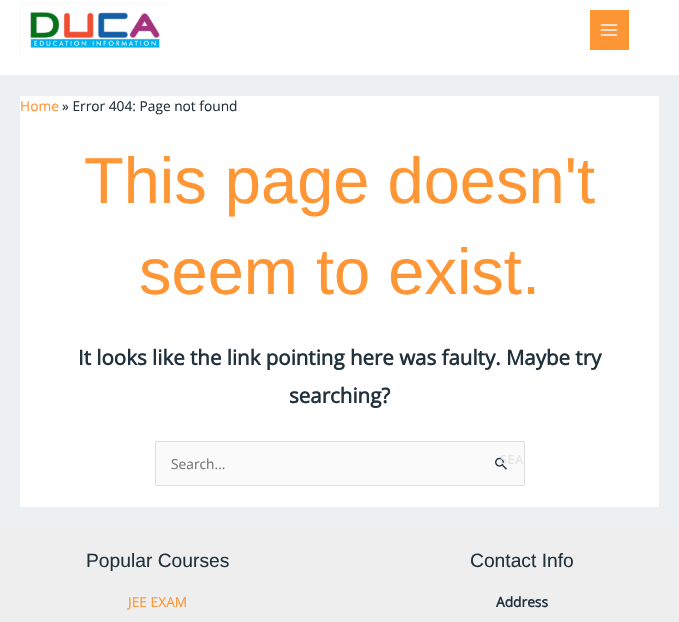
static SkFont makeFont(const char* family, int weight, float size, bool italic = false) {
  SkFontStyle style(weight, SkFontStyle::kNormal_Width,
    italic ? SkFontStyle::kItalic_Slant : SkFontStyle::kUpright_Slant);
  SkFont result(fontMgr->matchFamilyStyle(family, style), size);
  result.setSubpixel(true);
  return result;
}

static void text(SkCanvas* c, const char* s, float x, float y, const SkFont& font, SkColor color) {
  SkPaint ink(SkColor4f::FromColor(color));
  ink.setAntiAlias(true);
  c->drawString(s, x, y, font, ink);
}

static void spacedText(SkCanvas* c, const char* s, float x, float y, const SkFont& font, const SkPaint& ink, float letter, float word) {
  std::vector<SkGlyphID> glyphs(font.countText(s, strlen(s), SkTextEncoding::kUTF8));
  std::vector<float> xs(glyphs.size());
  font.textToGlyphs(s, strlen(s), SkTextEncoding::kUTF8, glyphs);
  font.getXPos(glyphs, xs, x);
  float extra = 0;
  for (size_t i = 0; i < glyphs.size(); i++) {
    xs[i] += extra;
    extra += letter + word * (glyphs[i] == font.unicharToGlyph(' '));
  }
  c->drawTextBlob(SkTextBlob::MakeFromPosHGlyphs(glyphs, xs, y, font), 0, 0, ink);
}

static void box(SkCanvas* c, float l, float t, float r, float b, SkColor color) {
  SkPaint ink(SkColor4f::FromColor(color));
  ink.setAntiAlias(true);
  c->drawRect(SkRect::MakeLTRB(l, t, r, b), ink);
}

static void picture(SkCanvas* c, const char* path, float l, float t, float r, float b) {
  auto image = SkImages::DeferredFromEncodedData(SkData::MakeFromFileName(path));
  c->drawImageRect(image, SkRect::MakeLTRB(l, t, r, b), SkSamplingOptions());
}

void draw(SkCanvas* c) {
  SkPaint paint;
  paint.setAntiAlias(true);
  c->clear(0xffecf0f2);
  box(c, 0, 0, 679, 75, 0xffffffff);
  picture(c, "img_01.png", 20, 3, 170, 57);
  box(c, 590, 10, 629, 50, 0xffff9635);
  picture(c, "img_02.png", 600, 24, 618, 36);
  box(c, 20, 96, 659, 507, 0xffffffff);
  SkFont face1 = makeFont("Open Sans", 400, 13.75f);
  text(c, "Home", 20, 111, face1, 0xffff9635);
  text(c, "» Error 404: Page not found", 62, 111, face1, 0xff22323d);
  SkFont face2 = makeFont("Liberation Sans", 400, 65);
  text(c, "This page doesn't", 84, 203, face2, 0xffff9635);
  text(c, "seem to exist.", 139, 294, face2, 0xffff9635);
  SkFont face3 = makeFont("Open Sans", 700, 20.5f);
  text(c, "It looks like the link pointing here was faulty. Maybe try", 78, 365, face3, 0xff22323d);
  text(c, "searching?", 289, 403, face3, 0xff22323d);
  paint.setColor(0xfffafafa);
  c->drawRoundRect(SkRect::MakeLTRB(155.5f, 441.5f, 524.5f, 485.5f), 1.5f, 1.5f, paint);
  paint.setStyle(SkPaint::kStroke_Style);
  paint.setStrokeWidth(1);
  paint.setColor(0xffdddddd);
  c->drawRoundRect(SkRect::MakeLTRB(155.5f, 441.5f, 524.5f, 485.5f), 1.5f, 1.5f, paint);
  picture(c, "img_03.png", 495, 457, 507, 470);
  SkFont face4 = makeFont("Open Sans", 700, 12);
  paint.setStyle(SkPaint::kFill_Style);
  paint.setColor(0xffe6e7e8);
  spacedText(c, "SEA", 500, 464, face4, paint, 1, 0);
  text(c, "Search...", 171, 469, face1, 0xff757575);
  box(c, 0, 527, 679, 622, 0xffeeeeee);
  SkFont face5 = makeFont("Liberation Sans", 400, 19.25f);
  text(c, "Popular Courses", 86, 567, face5, 0xff22323d);
  text(c, "JEE EXAM", 128, 607, face1, 0xffff9635);
  text(c, "Contact Info", 470, 567, face5, 0xff22323d);
  SkFont face6 = makeFont("Open Sans", 700, 13.75f);
  text(c, "Address", 496, 607, face6, 0xff22323d);
}
